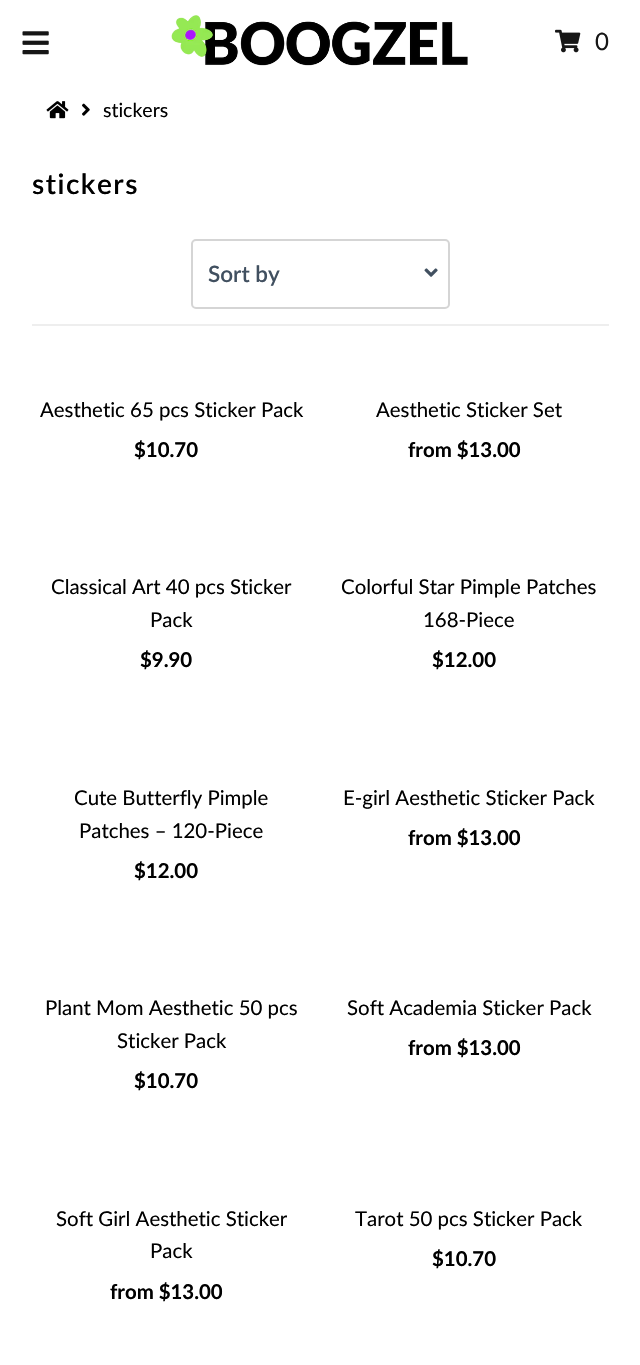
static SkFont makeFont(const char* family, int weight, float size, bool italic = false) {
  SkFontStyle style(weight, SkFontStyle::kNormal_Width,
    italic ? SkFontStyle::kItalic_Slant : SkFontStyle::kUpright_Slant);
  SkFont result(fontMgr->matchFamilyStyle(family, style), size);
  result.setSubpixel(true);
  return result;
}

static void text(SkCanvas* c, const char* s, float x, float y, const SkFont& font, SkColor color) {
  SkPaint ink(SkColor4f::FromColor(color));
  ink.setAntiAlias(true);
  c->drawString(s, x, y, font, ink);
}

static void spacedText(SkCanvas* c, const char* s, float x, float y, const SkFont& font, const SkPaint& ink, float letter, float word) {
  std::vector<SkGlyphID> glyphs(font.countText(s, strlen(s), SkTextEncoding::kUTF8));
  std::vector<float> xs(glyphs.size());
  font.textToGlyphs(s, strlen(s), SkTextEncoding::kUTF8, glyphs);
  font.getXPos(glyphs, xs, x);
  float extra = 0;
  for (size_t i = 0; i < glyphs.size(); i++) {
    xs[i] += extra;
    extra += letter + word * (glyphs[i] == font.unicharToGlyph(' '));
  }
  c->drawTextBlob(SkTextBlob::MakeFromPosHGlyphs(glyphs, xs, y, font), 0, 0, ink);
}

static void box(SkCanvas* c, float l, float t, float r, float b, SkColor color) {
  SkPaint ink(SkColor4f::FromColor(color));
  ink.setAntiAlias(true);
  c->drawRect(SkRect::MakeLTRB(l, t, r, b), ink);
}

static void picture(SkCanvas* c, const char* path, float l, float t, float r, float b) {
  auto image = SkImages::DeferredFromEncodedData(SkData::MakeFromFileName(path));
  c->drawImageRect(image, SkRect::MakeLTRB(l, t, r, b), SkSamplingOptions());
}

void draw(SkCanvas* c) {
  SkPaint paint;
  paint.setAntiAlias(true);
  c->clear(0xffffffff);
  picture(c, "img_01.png", 22, 31, 49, 55);
  picture(c, "img_02.png", 171, 15, 468, 66);
  picture(c, "img_03.png", 555, 29, 581, 53);
  SkFont face1 = makeFont("Lato", 400, 24);
  paint.setColor(0xff161616);
  spacedText(c, "0", 595, 50, face1, paint, 1.5f, 0);
  picture(c, "img_04.png", 46, 101, 69, 119);
  picture(c, "img_05.png", 82, 103, 90, 116);
  SkFont face2 = makeFont("Lato", 400, 19.5f);
  text(c, "stickers", 103, 117, face2, 0xff000000);
  SkFont face3 = makeFont("Lato", 600, 28);
  paint.setColor(0xff000000);
  spacedText(c, "stickers", 32, 194, face3, paint, 1.5f, 0);
  box(c, 32, 324, 609, 326, 0xffeeeeee);
  paint.setStyle(SkPaint::kStroke_Style);
  paint.setStrokeWidth(2);
  paint.setColor(0xffd5d5d5);
  c->drawRoundRect(SkRect::MakeLTRB(192, 240, 449, 308), 4, 4, paint);
  SkFont face4 = makeFont("Lato", 600, 22.5f);
  text(c, "Sort by", 208, 282, face4, 0xff415060);
  picture(c, "img_06.png", 424, 268, 438, 277);
  SkFont face5 = makeFont("Lato", 400, 20.4f);
  text(c, "Aesthetic 65 pcs Sticker Pack", 40, 417, face5, 0xff000000);
  SkFont face6 = makeFont("Lato", 700, 20.4f);
  text(c, "$10.70", 134, 457, face6, 0xff000000);
  text(c, "Aesthetic Sticker Set", 376, 417, face5, 0xff000000);
  text(c, "from $13.00", 408, 457, face6, 0xff000000);
  text(c, "Classical Art 40 pcs Sticker", 51, 594, face5, 0xff000000);
  text(c, "Pack", 150, 627, face5, 0xff000000);
  text(c, "$9.90", 140, 667, face6, 0xff000000);
  text(c, "Colorful Star Pimple Patches", 341, 594, face5, 0xff000000);
  text(c, "168-Piece", 423, 627, face5, 0xff000000);
  text(c, "$12.00", 432, 667, face6, 0xff000000);
  text(c, "Cute Butterfly Pimple", 74, 805, face5, 0xff000000);
  text(c, "Patches – 120-Piece", 79, 838, face5, 0xff000000);
  text(c, "$12.00", 134, 878, face6, 0xff000000);
  text(c, "E-girl Aesthetic Sticker Pack", 343, 805, face5, 0xff000000);
  text(c, "from $13.00", 408, 845, face6, 0xff000000);
  text(c, "Plant Mom Aesthetic 50 pcs", 45, 1015, face5, 0xff000000);
  text(c, "Sticker Pack", 117, 1048, face5, 0xff000000);
  text(c, "$10.70", 134, 1088, face6, 0xff000000);
  text(c, "Soft Academia Sticker Pack", 347, 1015, face5, 0xff000000);
  text(c, "from $13.00", 408, 1055, face6, 0xff000000);
  text(c, "Soft Girl Aesthetic Sticker", 56, 1226, face5, 0xff000000);
  text(c, "Pack", 150, 1258, face5, 0xff000000);
  text(c, "from $13.00", 110, 1299, face6, 0xff000000);
  text(c, "Tarot 50 pcs Sticker Pack", 355, 1226, face5, 0xff000000);
  text(c, "$10.70", 432, 1266, face6, 0xff000000);
}
